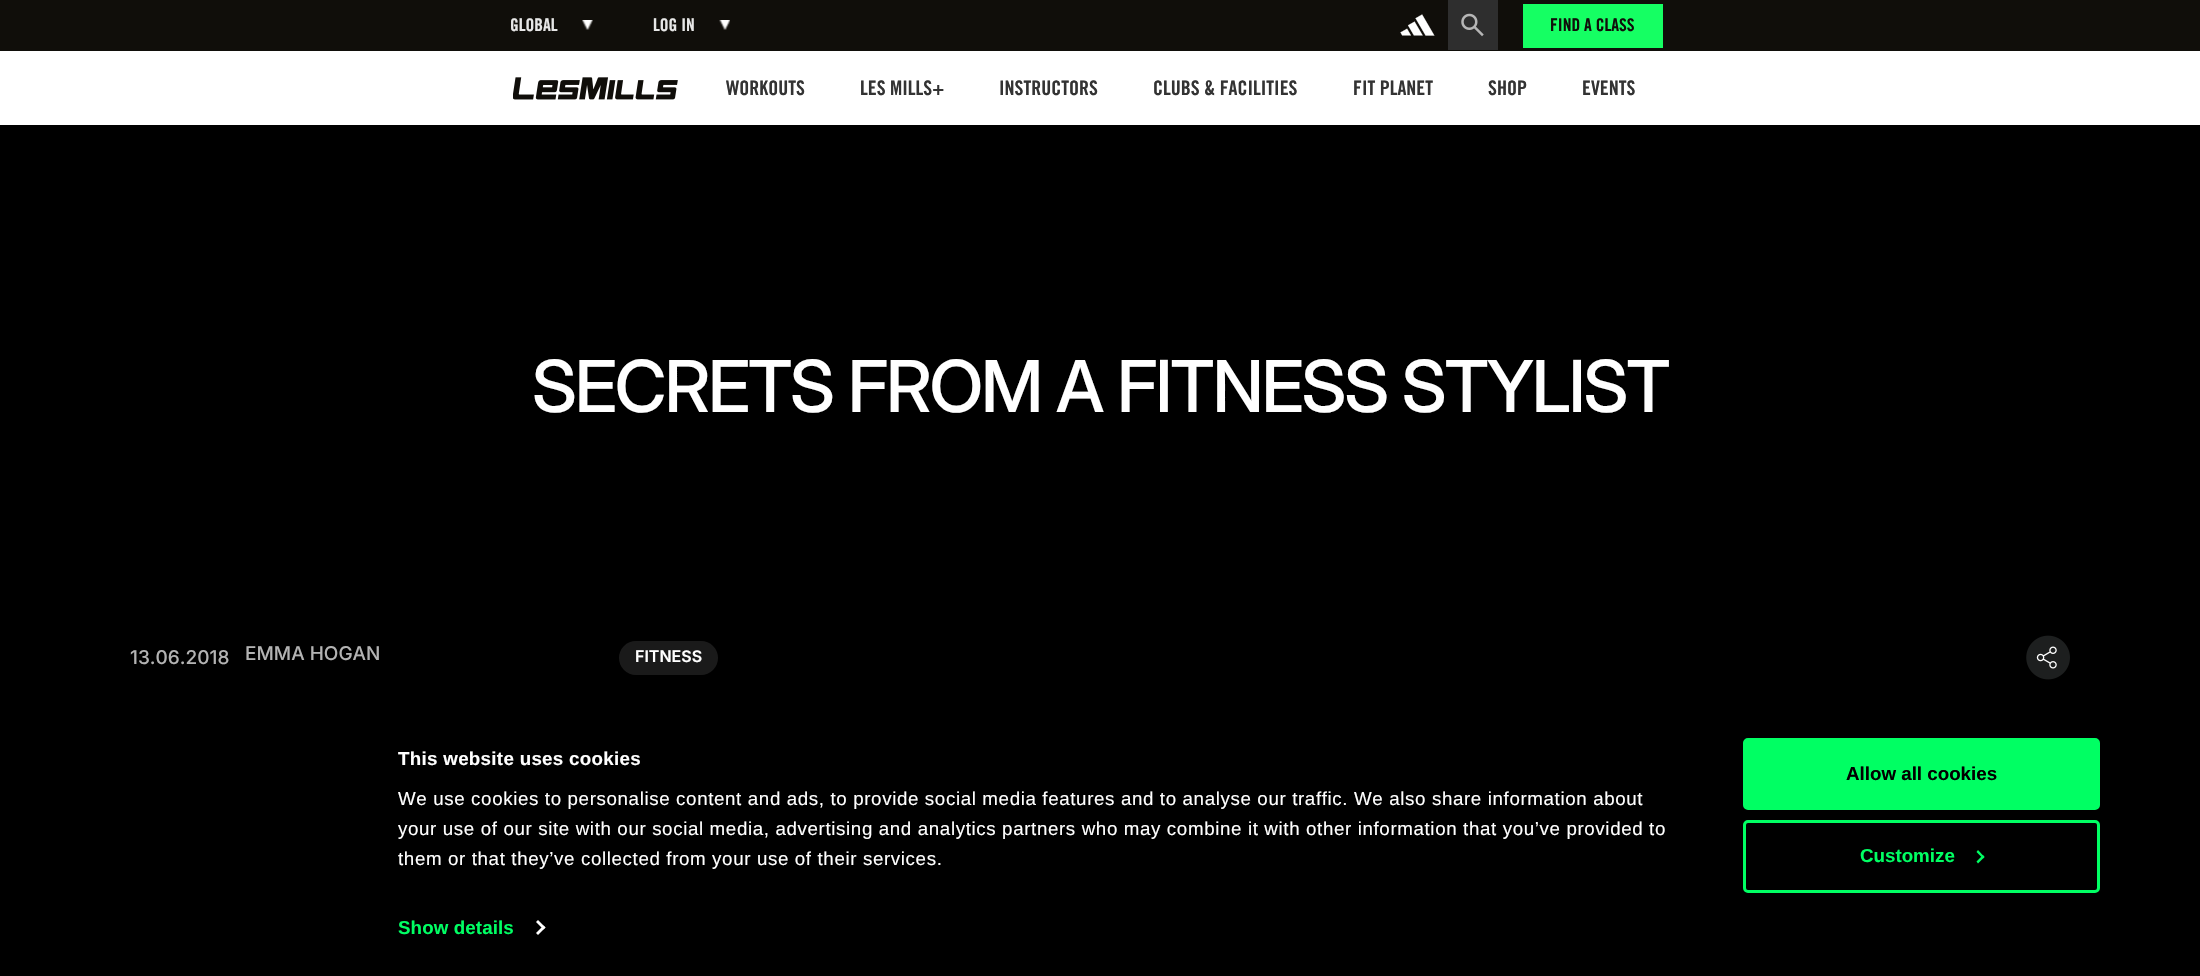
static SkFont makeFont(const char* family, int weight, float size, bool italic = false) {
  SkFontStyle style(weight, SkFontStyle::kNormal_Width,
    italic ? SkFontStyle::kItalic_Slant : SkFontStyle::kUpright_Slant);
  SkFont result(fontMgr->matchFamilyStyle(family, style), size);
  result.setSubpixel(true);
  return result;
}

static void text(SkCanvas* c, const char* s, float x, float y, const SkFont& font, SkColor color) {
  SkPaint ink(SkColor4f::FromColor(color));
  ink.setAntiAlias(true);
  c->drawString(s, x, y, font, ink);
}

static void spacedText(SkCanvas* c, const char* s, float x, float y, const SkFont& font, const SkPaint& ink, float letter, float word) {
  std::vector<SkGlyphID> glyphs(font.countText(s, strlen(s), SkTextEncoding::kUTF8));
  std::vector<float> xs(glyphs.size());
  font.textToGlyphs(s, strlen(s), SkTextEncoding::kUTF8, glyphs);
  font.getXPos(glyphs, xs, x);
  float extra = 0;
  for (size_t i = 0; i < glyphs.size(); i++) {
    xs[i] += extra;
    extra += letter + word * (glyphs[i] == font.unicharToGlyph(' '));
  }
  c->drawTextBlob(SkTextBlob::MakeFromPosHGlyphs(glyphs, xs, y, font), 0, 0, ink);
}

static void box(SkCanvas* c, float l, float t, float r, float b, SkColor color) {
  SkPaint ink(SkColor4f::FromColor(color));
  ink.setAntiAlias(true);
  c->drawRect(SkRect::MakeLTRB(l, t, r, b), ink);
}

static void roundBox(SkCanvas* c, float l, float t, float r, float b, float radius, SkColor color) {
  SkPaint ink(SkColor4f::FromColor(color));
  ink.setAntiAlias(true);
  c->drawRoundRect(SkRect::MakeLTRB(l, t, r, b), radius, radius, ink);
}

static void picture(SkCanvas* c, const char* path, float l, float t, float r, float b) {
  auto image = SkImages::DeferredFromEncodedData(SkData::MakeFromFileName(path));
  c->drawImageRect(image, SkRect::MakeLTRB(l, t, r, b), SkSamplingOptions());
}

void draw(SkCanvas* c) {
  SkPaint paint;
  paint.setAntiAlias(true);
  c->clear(0xff000000);
  box(c, 0, 0, 2200, 51, 0xff100e0a);
  SkFont face1 = makeFont("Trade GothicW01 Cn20", 700, 17.5f);
  text(c, "GLOBAL", 510, 31, face1, 0xffe7e7e7);
  picture(c, "img_01.png", 582, 20, 593, 30);
  text(c, "LOG IN", 653, 31, face1, 0xffe7e7e7);
  picture(c, "img_02.png", 719, 20, 730, 30);
  picture(c, "img_03.png", 1400, 14, 1435, 36);
  box(c, 1448, 0, 1498, 50, 0xff2e2e2e);
  picture(c, "img_04.png", 1461, 13, 1484, 37);
  box(c, 1523, 4, 1663, 48, 0xff15ff63);
  text(c, "FIND A CLASS", 1550, 31, face1, 0xff100e0a);
  box(c, 0, 51, 2200, 125, 0xffffffff);
  picture(c, "img_05.png", 513, 77, 678, 100);
  SkFont face2 = makeFont("Trade GothicW01 Cn20", 700, 20);
  text(c, "WORKOUTS", 726, 95, face2, 0xff333333);
  text(c, "LES MILLS+", 860, 95, face2, 0xff333333);
  text(c, "INSTRUCTORS", 999, 95, face2, 0xff333333);
  text(c, "CLUBS & FACILITIES", 1153, 95, face2, 0xff333333);
  text(c, "FIT PLANET", 1353, 95, face2, 0xff333333);
  text(c, "SHOP", 1488, 95, face2, 0xff333333);
  text(c, "EVENTS", 1582, 95, face2, 0xff333333);
  SkFont face3 = makeFont("Inter Display", 500, 71.6f);
  paint.setColor(0xffffffff);
  spacedText(c, "SECRETS FROM A FITNESS STYLIST", 532, 412, face3, paint, -2.15f, 0);
  SkFont face4 = makeFont("Inter", 500, 19);
  text(c, "13.06.2018", 130, 664, face4, 0xffb3b3b3);
  text(c, "EMMA HOGAN", 245, 660, face4, 0xffb3b3b3);
  roundBox(c, 619, 641, 718, 675, 17, 0xff1a1a1a);
  SkFont face5 = makeFont("Inter", 600, 16);
  text(c, "FITNESS", 635, 662, face5, 0xffffffff);
  picture(c, "img_06.png", 2026, 635, 2070, 680);
  SkFont face6 = makeFont("Liberation Sans", 700, 18.75f);
  spacedText(c, "This website uses cookies", 398, 765, face6, paint, 0.3f, 0);
  SkFont face7 = makeFont("Liberation Sans", 400, 18.75f);
  spacedText(c, "We use cookies to personalise content and ads, to provide social media features and to analyse our traffic. We also share information about", 398, 805, face7, paint, 0.62f, 0);
  spacedText(c, "your use of our site with our social media, advertising and analytics partners who may combine it with other information that you’ve provided to", 398, 835, face7, paint, 0.62f, 0);
  spacedText(c, "them or that they’ve collected from your use of their services.", 398, 865, face7, paint, 0.62f, 0);
  paint.setColor(0xff00ff63);
  spacedText(c, "Show details", 398, 934, face6, paint, 0.1f, 0);
  paint.setColor(0xffffffff);
  c->drawPath(SkPathBuilder().moveTo(538, 920).lineTo(545.5f, 927.5f).lineTo(543.5f, 929.5f).lineTo(536, 922).close().detach(), paint);
  c->drawPath(SkPathBuilder().moveTo(543.5f, 925.5f).lineTo(545.5f, 927.5f).lineTo(538, 935).lineTo(536, 933).close().detach(), paint);
  paint.setColor(0xff00ff63);
  c->drawRoundRect(SkRect::MakeLTRB(1744.5f, 739.5f, 2098.5f, 808.5f), 3.5f, 3.5f, paint);
  paint.setStyle(SkPaint::kStroke_Style);
  paint.setStrokeWidth(3);
  c->drawRoundRect(SkRect::MakeLTRB(1744.5f, 739.5f, 2098.5f, 808.5f), 3.5f, 3.5f, paint);
  text(c, "Allow all cookies", 1846, 780, face6, 0xff000000);
  c->drawRoundRect(SkRect::MakeLTRB(1744.5f, 821.5f, 2098.5f, 891.5f), 3.5f, 3.5f, paint);
  text(c, "Customize", 1860, 862, face6, 0xff00ff63);
  paint.setStyle(SkPaint::kFill_Style);
  c->drawPath(SkPathBuilder().moveTo(1978, 850).lineTo(1984.5f, 857).lineTo(1983, 858.5f).lineTo(1976.5f, 852).close().detach(), paint);
  c->drawPath(SkPathBuilder().moveTo(1983, 855).lineTo(1984.5f, 857).lineTo(1978, 863.5f).lineTo(1976.5f, 861.5f).close().detach(), paint);
}
